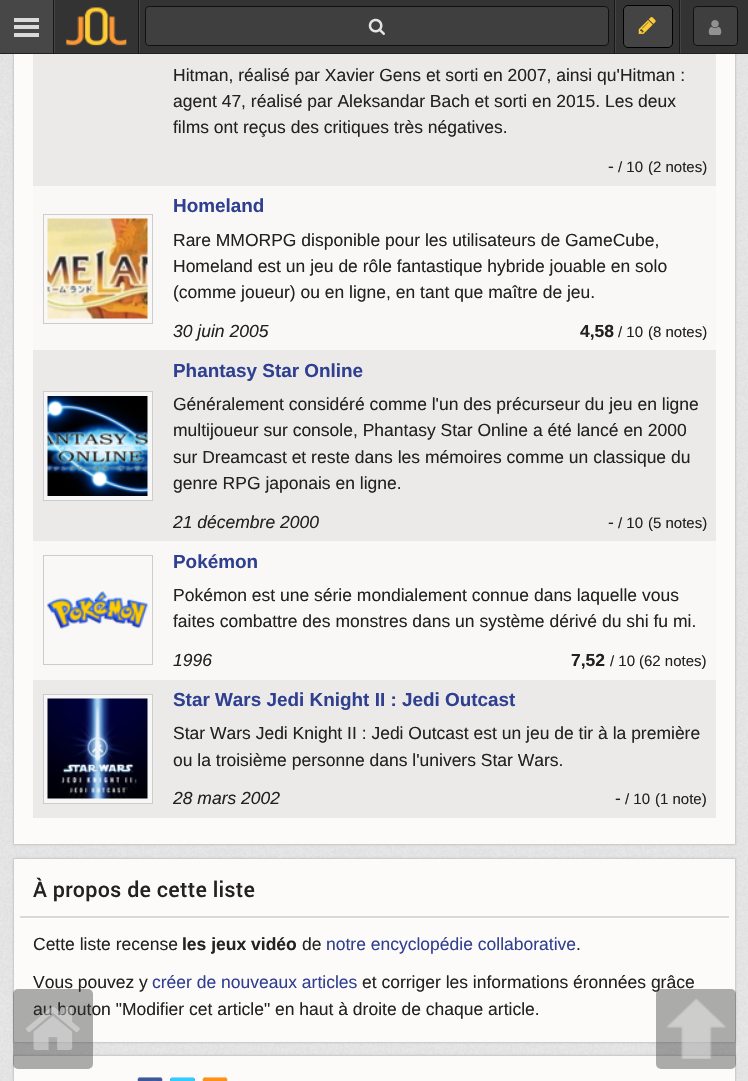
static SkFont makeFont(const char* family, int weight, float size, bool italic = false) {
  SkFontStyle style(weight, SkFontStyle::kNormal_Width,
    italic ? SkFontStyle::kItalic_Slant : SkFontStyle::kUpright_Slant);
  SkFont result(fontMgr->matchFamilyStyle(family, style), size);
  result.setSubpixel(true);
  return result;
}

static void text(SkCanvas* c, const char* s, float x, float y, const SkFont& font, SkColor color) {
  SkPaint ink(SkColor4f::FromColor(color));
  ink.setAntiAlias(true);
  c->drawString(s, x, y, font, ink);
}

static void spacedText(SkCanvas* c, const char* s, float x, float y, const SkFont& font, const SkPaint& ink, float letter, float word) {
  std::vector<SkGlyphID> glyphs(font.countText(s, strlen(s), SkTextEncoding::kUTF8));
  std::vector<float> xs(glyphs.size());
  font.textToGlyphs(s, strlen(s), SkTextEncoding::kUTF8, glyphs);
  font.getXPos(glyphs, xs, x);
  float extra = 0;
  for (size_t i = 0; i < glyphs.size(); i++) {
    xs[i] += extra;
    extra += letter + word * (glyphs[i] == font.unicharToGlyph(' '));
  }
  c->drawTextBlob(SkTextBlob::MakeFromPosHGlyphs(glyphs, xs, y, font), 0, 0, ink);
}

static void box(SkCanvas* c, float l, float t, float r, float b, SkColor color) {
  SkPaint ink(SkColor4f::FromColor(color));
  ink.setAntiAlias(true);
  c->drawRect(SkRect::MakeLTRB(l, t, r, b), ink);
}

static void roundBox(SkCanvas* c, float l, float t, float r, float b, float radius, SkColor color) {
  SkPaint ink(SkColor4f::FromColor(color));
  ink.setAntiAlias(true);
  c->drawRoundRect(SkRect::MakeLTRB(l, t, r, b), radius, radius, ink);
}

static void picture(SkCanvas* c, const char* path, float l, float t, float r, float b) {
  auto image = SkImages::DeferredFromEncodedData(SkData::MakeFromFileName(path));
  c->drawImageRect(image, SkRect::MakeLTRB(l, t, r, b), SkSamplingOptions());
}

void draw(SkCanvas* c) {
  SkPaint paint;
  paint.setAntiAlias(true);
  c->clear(0xffeae9e8);
  picture(c, "img_01.png", 0, 54, 748, 1081);
  paint.setColor(0x1f000000);
  paint.setMaskFilter(SkMaskFilter::MakeBlur(kNormal_SkBlurStyle, 1));
  c->drawRoundRect(SkRect::MakeLTRB(13, -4, 736, 845), 1, 1, paint);
  paint.setMaskFilter(nullptr);
  paint.setColor(0xfffcfbfa);
  c->drawRoundRect(SkRect::MakeLTRB(13.5f, -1.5f, 735.5f, 844.5f), 0.5f, 0.5f, paint);
  paint.setStyle(SkPaint::kStroke_Style);
  paint.setStrokeWidth(1);
  paint.setColor(0xffcdcdcd);
  c->drawRoundRect(SkRect::MakeLTRB(13.5f, -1.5f, 735.5f, 844.5f), 0.5f, 0.5f, paint);
  box(c, 55, 0, 748, 53, 0xff333333);
  box(c, 54, 0, 55, 54, 0xff444444);
  box(c, 139, 0, 140, 54, 0xff444444);
  box(c, 615, 0, 616, 54, 0xff444444);
  box(c, 680, 0, 681, 54, 0xff444444);
  box(c, 0, 53, 748, 54, 0xff222222);
  box(c, 0, 0, 53, 53, 0xff474747);
  box(c, 14, 18, 39, 22, 0xffdadada);
  box(c, 14, 25, 39, 29, 0xffdadada);
  box(c, 14, 33, 39, 37, 0xffdadada);
  box(c, 53, 0, 54, 54, 0xff181818);
  picture(c, "img_02.png", 66, 7, 127, 46);
  box(c, 138, 0, 139, 54, 0xff181818);
  paint.setStyle(SkPaint::kFill_Style);
  paint.setColor(0xff3f3f3f);
  c->drawRoundRect(SkRect::MakeLTRB(145.5f, 6.5f, 608.5f, 45.5f), 3.5f, 3.5f, paint);
  paint.setStyle(SkPaint::kStroke_Style);
  paint.setColor(0xff111111);
  c->drawRoundRect(SkRect::MakeLTRB(145.5f, 6.5f, 608.5f, 45.5f), 3.5f, 3.5f, paint);
  picture(c, "img_03.png", 368, 18, 385, 35);
  box(c, 614, 0, 615, 54, 0xff181818);
  paint.setStyle(SkPaint::kFill_Style);
  paint.setColor(0xff444444);
  c->drawRoundRect(SkRect::MakeLTRB(623.5f, 5.5f, 672.5f, 47.5f), 4.5f, 4.5f, paint);
  paint.setStyle(SkPaint::kStroke_Style);
  paint.setColor(0xff000000);
  c->drawRoundRect(SkRect::MakeLTRB(623.5f, 5.5f, 672.5f, 47.5f), 4.5f, 4.5f, paint);
  picture(c, "img_04.png", 638, 17, 656, 34);
  box(c, 679, 0, 680, 54, 0xff181818);
  paint.setStyle(SkPaint::kFill_Style);
  paint.setColor(0xff3f3f3f);
  c->drawRoundRect(SkRect::MakeLTRB(693.5f, 6.5f, 737.5f, 45.5f), 3.5f, 3.5f, paint);
  paint.setStyle(SkPaint::kStroke_Style);
  paint.setColor(0xff111111);
  c->drawRoundRect(SkRect::MakeLTRB(693.5f, 6.5f, 737.5f, 45.5f), 3.5f, 3.5f, paint);
  picture(c, "img_05.png", 708, 20, 722, 35);
  box(c, 33, 54, 716, 186, 0xffebeae9);
  SkFont face1 = makeFont("Liberation Sans", 400, 17.5f);
  text(c, "Hitman, réalisé par Xavier Gens et sorti en 2007, ainsi qu'Hitman :", 173, 81, face1, 0xff222222);
  text(c, "agent 47, réalisé par Aleksandar Bach et sorti en 2015. Les deux", 173, 107, face1, 0xff222222);
  text(c, "films ont reçus des critiques très négatives.", 173, 133, face1, 0xff222222);
  text(c, "-", 608, 172, face1, 0xff222222);
  SkFont face2 = makeFont("Liberation Sans", 400, 15);
  text(c, "/ 10", 618, 172, face2, 0xff222222);
  text(c, "(2 notes)", 648, 172, face2, 0xff222222);
  box(c, 33, 186, 716, 350, 0xfff9f8f7);
  paint.setColor(0xffcccccc);
  c->drawRect(SkRect::MakeLTRB(43.5f, 214.5f, 152.5f, 323.5f), paint);
  picture(c, "img_06.png", 47, 218, 148, 319);
  SkFont face3 = makeFont("Liberation Sans", 700, 18.9f);
  text(c, "Homeland", 173, 212, face3, 0xff304090);
  text(c, "Rare MMORPG disponible pour les utilisateurs de GameCube,", 173, 246, face1, 0xff222222);
  text(c, "Homeland est un jeu de rôle fantastique hybride jouable en solo", 173, 272, face1, 0xff222222);
  text(c, "(comme joueur) ou en ligne, en tant que maître de jeu.", 173, 298, face1, 0xff222222);
  SkFont face4 = makeFont("Liberation Sans", 400, 17.5f, true);
  text(c, "30 juin 2005", 173, 337, face4, 0xff222222);
  SkFont face5 = makeFont("Liberation Sans", 700, 17.5f);
  text(c, "4,58", 580, 337, face5, 0xff222222);
  text(c, "/ 10", 618, 337, face2, 0xff222222);
  text(c, "(8 notes)", 648, 337, face2, 0xff222222);
  box(c, 33, 350, 716, 541, 0xffebeae9);
  paint.setStyle(SkPaint::kFill_Style);
  paint.setColor(0xfff7f7f7);
  c->drawRect(SkRect::MakeLTRB(43.5f, 391.5f, 152.5f, 500.5f), paint);
  paint.setStyle(SkPaint::kStroke_Style);
  paint.setColor(0xffcccccc);
  c->drawRect(SkRect::MakeLTRB(43.5f, 391.5f, 152.5f, 500.5f), paint);
  picture(c, "img_07.png", 47, 396, 148, 496);
  text(c, "Phantasy Star Online", 173, 377, face3, 0xff304090);
  text(c, "Généralement considéré comme l'un des précurseur du jeu en ligne", 173, 410, face1, 0xff222222);
  text(c, "multijoueur sur console, Phantasy Star Online a été lancé en 2000", 173, 436, face1, 0xff222222);
  text(c, "sur Dreamcast et reste dans les mémoires comme un classique du", 173, 463, face1, 0xff222222);
  text(c, "genre RPG japonais en ligne.", 173, 489, face1, 0xff222222);
  text(c, "21 décembre 2000", 173, 528, face4, 0xff222222);
  text(c, "-", 608, 528, face1, 0xff222222);
  text(c, "/ 10", 618, 528, face2, 0xff222222);
  text(c, "(5 notes)", 648, 528, face2, 0xff222222);
  box(c, 33, 541, 716, 680, 0xfff9f8f7);
  c->drawRect(SkRect::MakeLTRB(43.5f, 555.5f, 152.5f, 664.5f), paint);
  picture(c, "img_08.png", 47, 591, 148, 629);
  text(c, "Pokémon", 173, 568, face3, 0xff304090);
  text(c, "Pokémon est une série mondialement connue dans laquelle vous", 173, 601, face1, 0xff222222);
  text(c, "faites combattre des monstres dans un système dérivé du shi fu mi.", 173, 627, face1, 0xff222222);
  text(c, "1996", 173, 666, face4, 0xff222222);
  text(c, "7,52", 571, 666, face5, 0xff222222);
  text(c, "/ 10", 610, 666, face2, 0xff222222);
  text(c, "(62 notes)", 639, 666, face2, 0xff222222);
  box(c, 33, 680, 716, 818, 0xffebeae9);
  paint.setStyle(SkPaint::kFill_Style);
  paint.setColor(0xfff7f7f7);
  c->drawRect(SkRect::MakeLTRB(43.5f, 694.5f, 152.5f, 803.5f), paint);
  paint.setStyle(SkPaint::kStroke_Style);
  paint.setColor(0xffcccccc);
  c->drawRect(SkRect::MakeLTRB(43.5f, 694.5f, 152.5f, 803.5f), paint);
  picture(c, "img_09.png", 47, 698, 148, 799);
  text(c, "Star Wars Jedi Knight II : Jedi Outcast", 173, 706, face3, 0xff304090);
  text(c, "Star Wars Jedi Knight II : Jedi Outcast est un jeu de tir à la première", 173, 739, face1, 0xff222222);
  text(c, "ou la troisième personne dans l'univers Star Wars.", 173, 766, face1, 0xff222222);
  text(c, "28 mars 2002", 173, 804, face4, 0xff222222);
  text(c, "-", 615, 804, face1, 0xff222222);
  text(c, "/ 10", 625, 804, face2, 0xff222222);
  text(c, "(1 note)", 655, 804, face2, 0xff222222);
  paint.setStyle(SkPaint::kFill_Style);
  paint.setColor(0x1f000000);
  paint.setMaskFilter(SkMaskFilter::MakeBlur(kNormal_SkBlurStyle, 1));
  c->drawRoundRect(SkRect::MakeLTRB(13, 858, 736, 1043), 1, 1, paint);
  paint.setMaskFilter(nullptr);
  paint.setColor(0xfffcfbfa);
  c->drawRoundRect(SkRect::MakeLTRB(13.5f, 858.5f, 735.5f, 1042.5f), 0.5f, 0.5f, paint);
  paint.setStyle(SkPaint::kStroke_Style);
  paint.setColor(0xffcdcdcd);
  c->drawRoundRect(SkRect::MakeLTRB(13.5f, 858.5f, 735.5f, 1042.5f), 0.5f, 0.5f, paint);
  SkFont face6 = makeFont("Roboto", 500, 21.5f);
  paint.setStyle(SkPaint::kFill_Style);
  paint.setColor(0xff222222);
  spacedText(c, "À propos de cette liste", 33, 897, face6, paint, 0.25f, 0);
  box(c, 20, 916, 729, 918, 0xffd9d9d9);
  box(c, 20, 918, 729, 919, 0xffffffff);
  text(c, "Cette liste recense", 33, 950, face1, 0xff222222);
  text(c, "les jeux vidéo", 182, 950, face5, 0xff222222);
  text(c, "de", 302, 950, face1, 0xff222222);
  text(c, "notre encyclopédie collaborative", 326, 950, face1, 0xff304090);
  text(c, ".", 576, 950, face1, 0xff222222);
  text(c, "Vous pouvez y", 33, 988, face1, 0xff222222);
  text(c, "créer de nouveaux articles", 152, 988, face1, 0xff304090);
  text(c, "et corriger les informations éronnées grâce", 362, 988, face1, 0xff222222);
  text(c, "au bouton \"Modifier cet article\" en haut à droite de chaque article.", 33, 1015, face1, 0xff222222);
  paint.setColor(0x1f000000);
  paint.setMaskFilter(SkMaskFilter::MakeBlur(kNormal_SkBlurStyle, 1));
  c->drawRoundRect(SkRect::MakeLTRB(13, 1055, 736, 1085), 1, 1, paint);
  paint.setMaskFilter(nullptr);
  paint.setColor(0xfffcfbfa);
  c->drawRoundRect(SkRect::MakeLTRB(13.5f, 1055.5f, 735.5f, 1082.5f), 0.5f, 0.5f, paint);
  paint.setStyle(SkPaint::kStroke_Style);
  paint.setColor(0xffcdcdcd);
  c->drawRoundRect(SkRect::MakeLTRB(13.5f, 1055.5f, 735.5f, 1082.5f), 0.5f, 0.5f, paint);
  picture(c, "img_10.png", 137, 1077, 163, 1081);
  picture(c, "img_11.png", 170, 1077, 195, 1081);
  picture(c, "img_12.png", 202, 1077, 228, 1081);
  roundBox(c, 13, 989, 93, 1069, 5, 0x66333333);
  picture(c, "img_13.png", 26, 1007, 80, 1050);
  roundBox(c, 656, 989, 736, 1069, 5, 0x66333333);
  picture(c, "img_14.png", 666, 998, 726, 1059);
}
